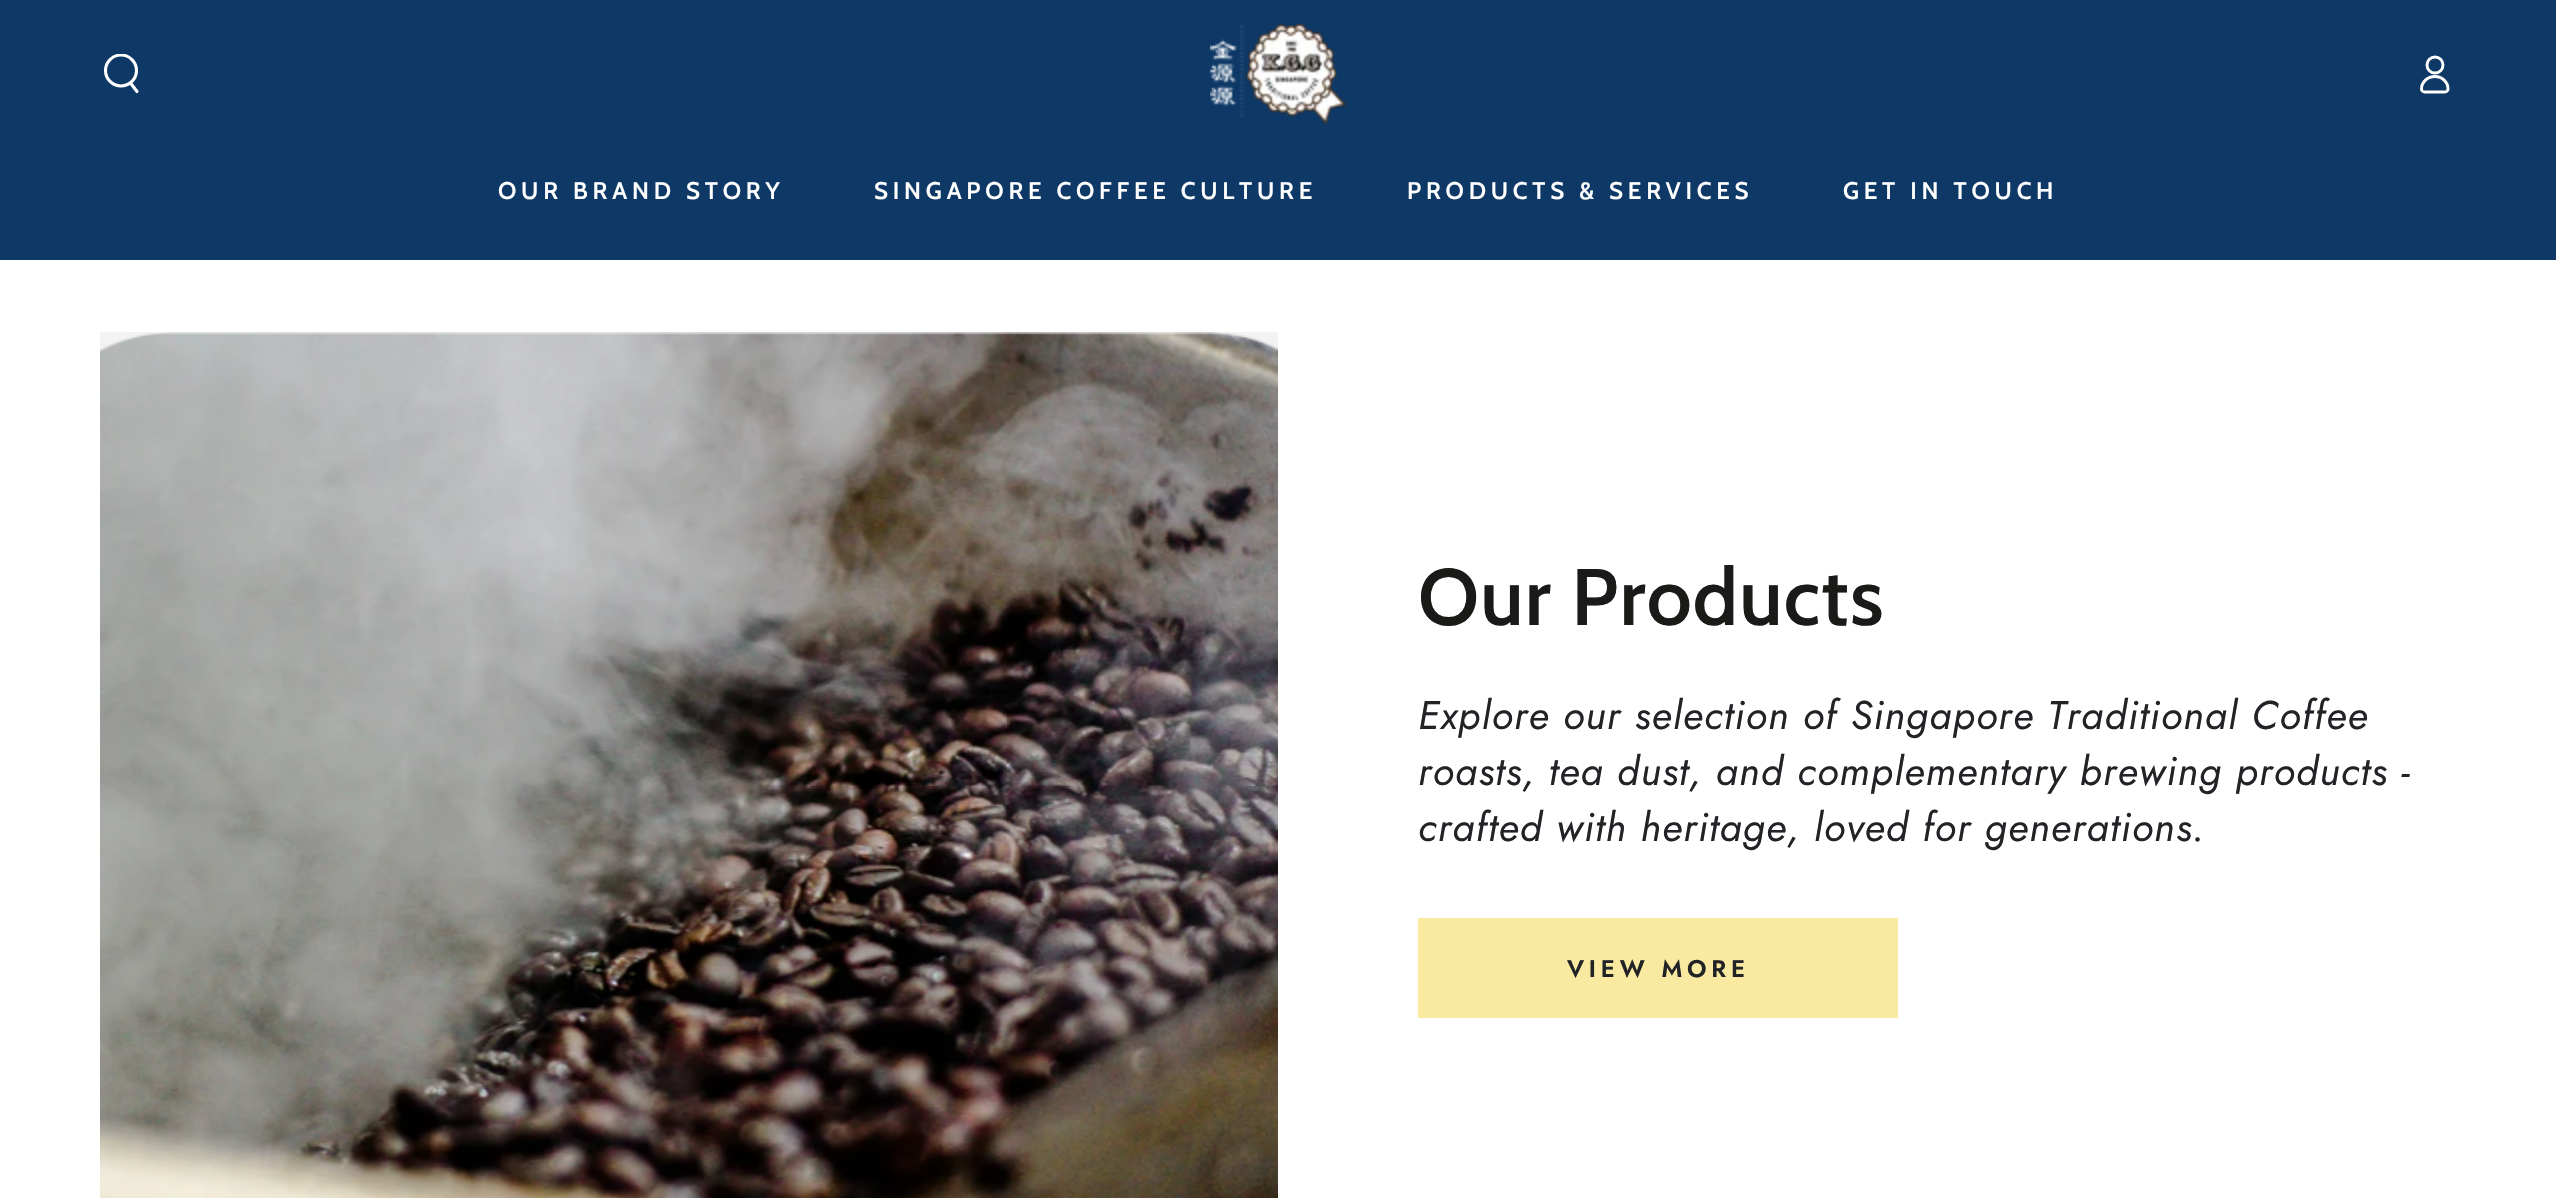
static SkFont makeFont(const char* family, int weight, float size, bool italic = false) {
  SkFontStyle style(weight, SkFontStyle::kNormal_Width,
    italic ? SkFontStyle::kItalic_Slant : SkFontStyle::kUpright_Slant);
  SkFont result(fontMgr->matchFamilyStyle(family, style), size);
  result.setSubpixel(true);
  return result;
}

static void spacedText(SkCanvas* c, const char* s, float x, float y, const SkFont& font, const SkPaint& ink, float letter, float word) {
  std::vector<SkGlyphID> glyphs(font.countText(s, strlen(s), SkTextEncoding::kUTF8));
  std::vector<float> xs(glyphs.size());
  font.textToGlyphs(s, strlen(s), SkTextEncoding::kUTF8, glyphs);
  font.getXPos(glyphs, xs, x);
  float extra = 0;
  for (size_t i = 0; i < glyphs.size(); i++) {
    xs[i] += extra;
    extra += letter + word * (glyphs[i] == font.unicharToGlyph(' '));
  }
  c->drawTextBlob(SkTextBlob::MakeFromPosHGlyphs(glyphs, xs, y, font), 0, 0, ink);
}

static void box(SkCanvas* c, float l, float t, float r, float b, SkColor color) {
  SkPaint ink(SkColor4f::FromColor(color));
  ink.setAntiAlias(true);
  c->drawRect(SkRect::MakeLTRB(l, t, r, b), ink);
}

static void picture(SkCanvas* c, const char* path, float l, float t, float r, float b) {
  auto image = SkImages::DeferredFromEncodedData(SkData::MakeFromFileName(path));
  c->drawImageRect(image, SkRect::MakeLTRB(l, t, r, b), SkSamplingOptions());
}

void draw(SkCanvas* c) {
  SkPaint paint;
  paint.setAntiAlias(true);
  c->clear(0xffffffff);
  box(c, 0, 0, 2556, 260, 0xff0e3967);
  c->save();
  c->clipRect(SkRect::MakeLTRB(102, 54, 142, 94));
  paint.setStyle(SkPaint::kStroke_Style);
  paint.setStrokeWidth(3.1f);
  paint.setColor(0xffffffff);
  c->drawCircle(121, 70.5f, 15.5f, paint);
  c->restore();
  paint.setStrokeCap(SkPaint::kRound_Cap);
  c->drawPath(SkPathBuilder().moveTo(130.5f, 83).lineTo(137, 91.5f).detach(), paint);
  picture(c, "img_01.png", 1210, 24, 1346, 124);
  paint.setStrokeWidth(2.9f);
  paint.setStrokeCap(SkPaint::kButt_Cap);
  c->drawPath(SkPathBuilder().moveTo(2435, 76.5f).cubicTo(2427.5f, 76.5f, 2421.5f, 82, 2421.5f, 89).cubicTo(2421.5f, 90.5f, 2423, 92, 2424.5f, 92).lineTo(2445, 92).cubicTo(2446.5f, 92, 2448, 90.5f, 2448, 89).cubicTo(2448, 82, 2442, 76.5f, 2435, 76.5f).close().detach(), paint);
  c->drawCircle(2435, 65, 8, paint);
  SkFont face1 = makeFont("Cabin", 600, 24);
  paint.setStyle(SkPaint::kFill_Style);
  spacedText(c, "OUR BRAND STORY", 498, 199, face1, paint, 4.8f, 0);
  spacedText(c, "SINGAPORE COFFEE CULTURE", 874, 199, face1, paint, 4.8f, 0);
  spacedText(c, "PRODUCTS & SERVICES", 1407, 199, face1, paint, 4.8f, 0);
  spacedText(c, "GET IN TOUCH", 1843, 199, face1, paint, 4.8f, 0);
  box(c, 100, 332, 1278, 1198, 0xfff3f3f3);
  picture(c, "img_02.png", 100, 332, 1278, 1198);
  SkFont face2 = makeFont("Cabin", 600, 80);
  paint.setColor(0xff1a1b18);
  spacedText(c, "Our Products", 1418, 625, face2, paint, 1.2f, 0);
  SkFont face3 = makeFont("Jost", 400, 40, true);
  paint.setColor(0xff212326);
  spacedText(c, "Explore our selection of Singapore Traditional Coffee", 1418, 729, face3, paint, 1.2f, 0);
  spacedText(c, "roasts, tea dust, and complementary brewing products -", 1418, 785, face3, paint, 1.2f, 0);
  spacedText(c, "crafted with heritage, loved for generations.", 1418, 841, face3, paint, 1.2f, 0);
  box(c, 1418, 918, 1898, 1018, 0xfffaeaa1);
  SkFont face4 = makeFont("Jost", 600, 24);
  spacedText(c, "VIEW MORE", 1567, 977, face4, paint, 4.8f, 0);
}
